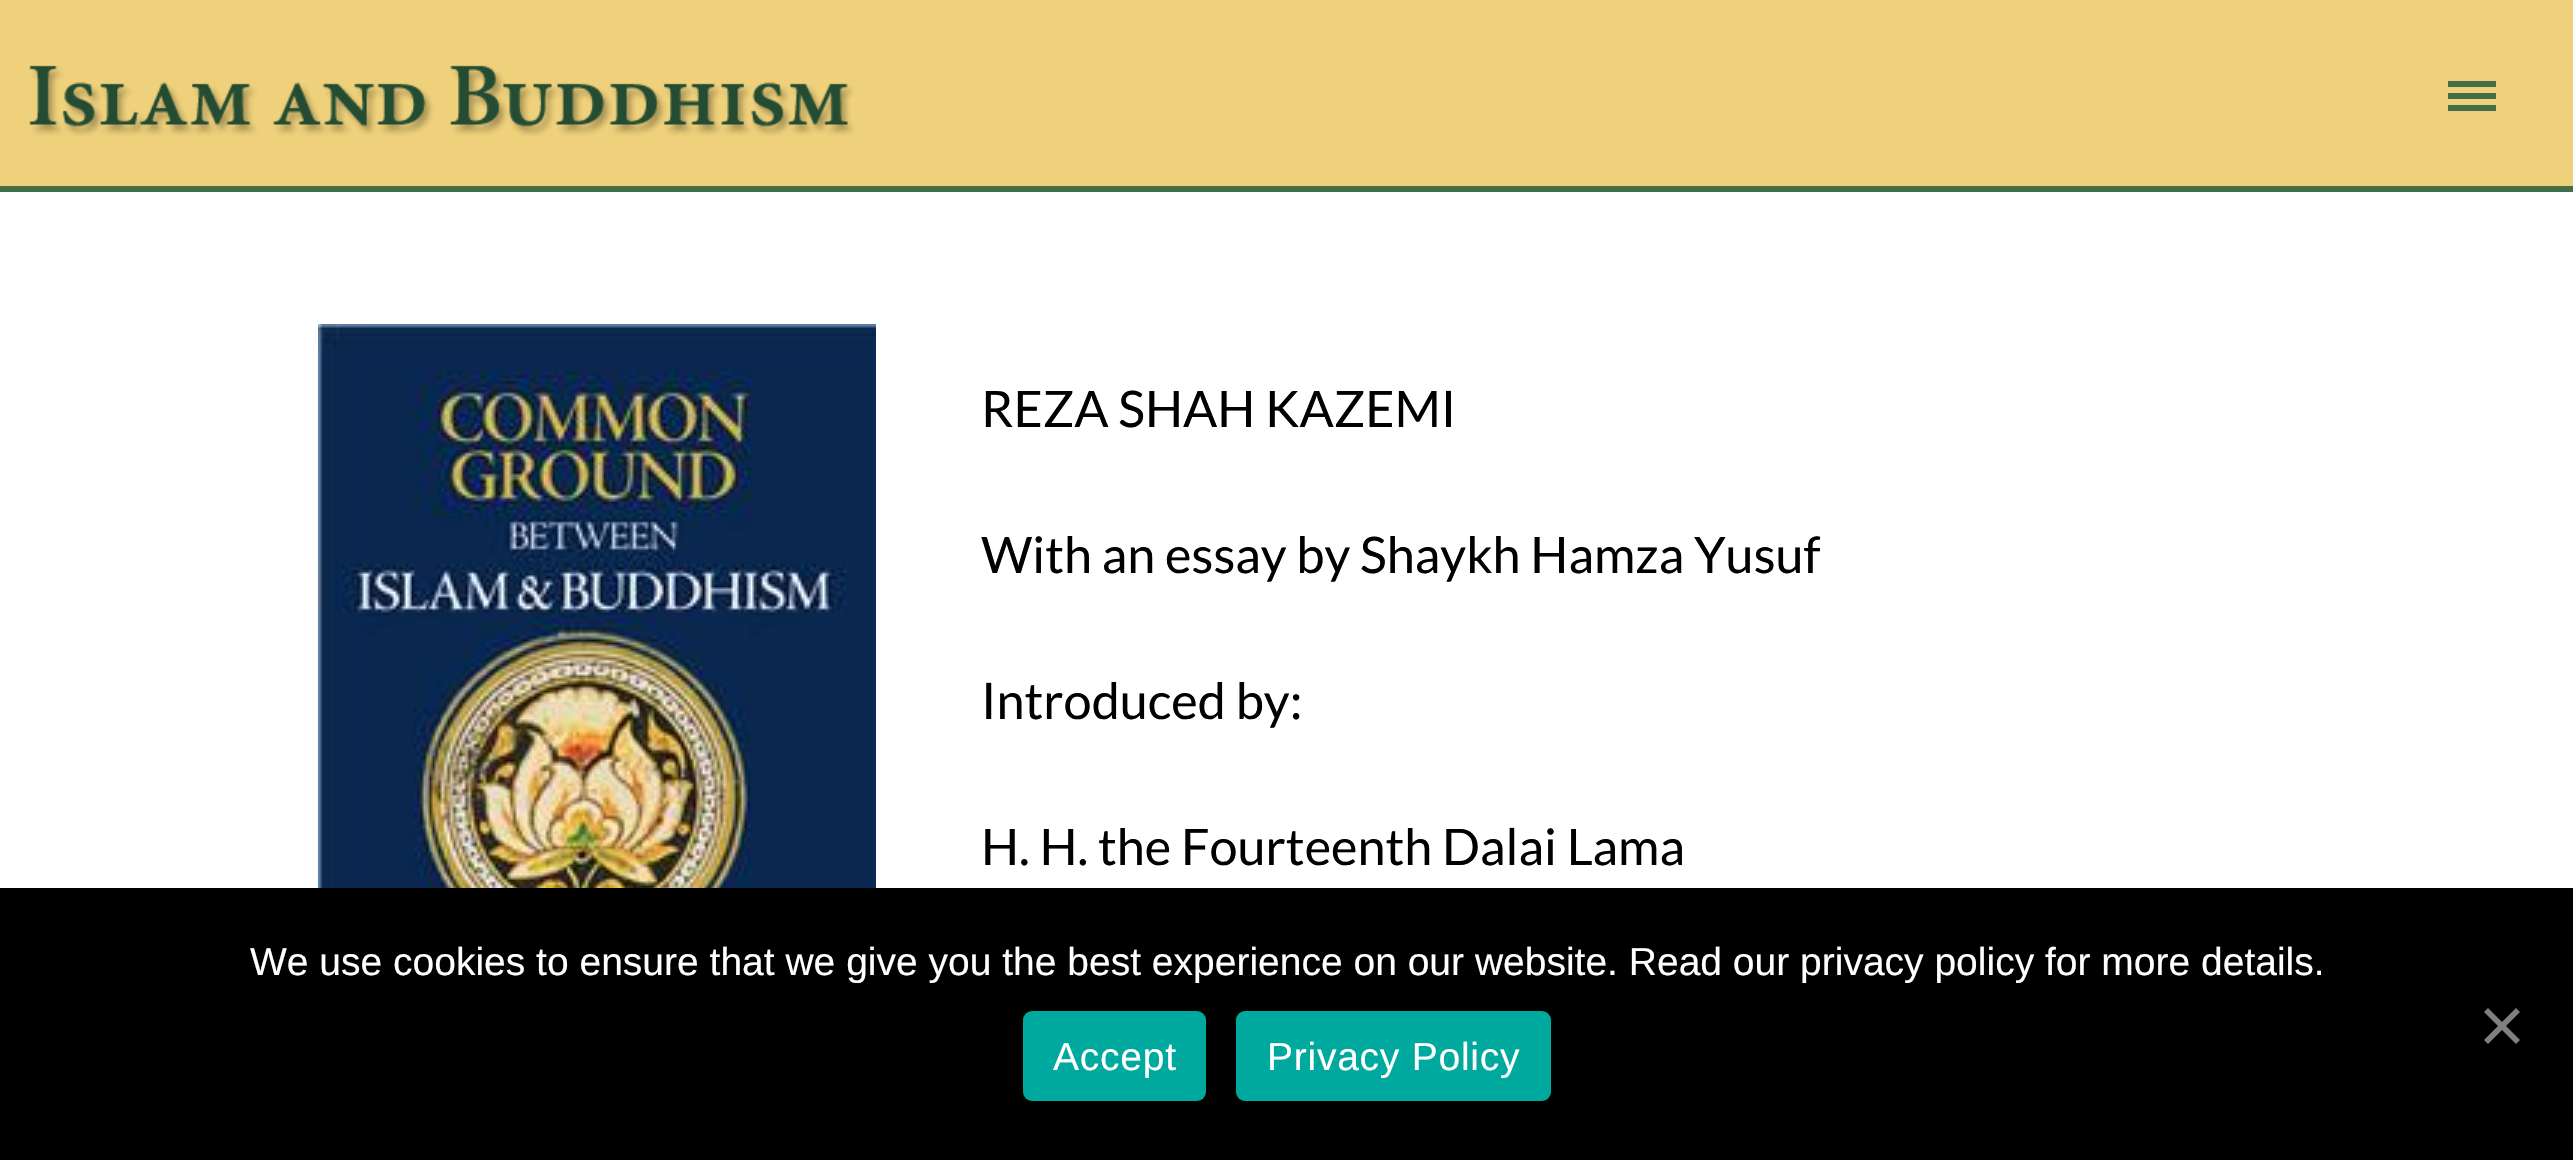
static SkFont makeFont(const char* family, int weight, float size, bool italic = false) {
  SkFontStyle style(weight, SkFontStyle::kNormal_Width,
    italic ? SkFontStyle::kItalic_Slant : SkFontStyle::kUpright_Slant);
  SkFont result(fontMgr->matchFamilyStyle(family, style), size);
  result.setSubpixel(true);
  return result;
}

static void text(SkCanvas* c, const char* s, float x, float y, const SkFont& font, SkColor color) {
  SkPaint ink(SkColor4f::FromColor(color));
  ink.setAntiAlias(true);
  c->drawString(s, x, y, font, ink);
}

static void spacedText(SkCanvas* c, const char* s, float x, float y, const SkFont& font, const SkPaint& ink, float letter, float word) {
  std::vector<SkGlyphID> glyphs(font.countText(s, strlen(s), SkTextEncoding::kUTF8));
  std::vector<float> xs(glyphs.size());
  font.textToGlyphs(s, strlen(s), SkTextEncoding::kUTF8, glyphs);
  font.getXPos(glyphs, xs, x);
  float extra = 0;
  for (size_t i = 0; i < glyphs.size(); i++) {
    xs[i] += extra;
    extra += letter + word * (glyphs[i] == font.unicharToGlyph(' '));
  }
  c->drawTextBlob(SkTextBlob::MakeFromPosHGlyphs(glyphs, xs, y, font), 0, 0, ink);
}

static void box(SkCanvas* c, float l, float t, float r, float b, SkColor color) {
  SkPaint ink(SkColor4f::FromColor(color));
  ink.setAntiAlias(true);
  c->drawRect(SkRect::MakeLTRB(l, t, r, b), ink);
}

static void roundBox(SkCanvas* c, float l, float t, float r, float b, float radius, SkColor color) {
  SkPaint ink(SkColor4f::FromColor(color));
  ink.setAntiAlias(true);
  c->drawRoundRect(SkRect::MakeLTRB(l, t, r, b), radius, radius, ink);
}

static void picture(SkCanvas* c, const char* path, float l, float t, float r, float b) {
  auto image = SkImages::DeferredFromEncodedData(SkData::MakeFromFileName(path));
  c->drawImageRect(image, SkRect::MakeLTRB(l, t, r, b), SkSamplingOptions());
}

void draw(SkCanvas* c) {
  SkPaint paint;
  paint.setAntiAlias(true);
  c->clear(0xffffffff);
  box(c, 0, 0, 2573, 186, 0xffefd17b);
  box(c, 0, 186, 2573, 192, 0xff456d48);
  picture(c, "img_01.png", 29, 65, 854, 136);
  box(c, 2448, 81, 2496, 87, 0xff456d48);
  box(c, 2448, 93, 2496, 99, 0xff456d48);
  box(c, 2448, 105, 2496, 111, 0xff456d48);
  picture(c, "img_02.png", 318, 324, 876, 888);
  SkFont face1 = makeFont("Lato", 400, 50.4f);
  text(c, "REZA SHAH KAZEMI", 981, 427, face1, 0xff000000);
  text(c, "With an essay by Shaykh Hamza Yusuf", 981, 573, face1, 0xff000000);
  text(c, "Introduced by:", 981, 719, face1, 0xff000000);
  text(c, "H. H. the Fourteenth Dalai Lama", 981, 865, face1, 0xff000000);
  box(c, 0, 888, 2573, 1160, 0xff000000);
  SkFont face2 = makeFont("Liberation Sans", 400, 39);
  text(c, "We use cookies to ensure that we give you the best experience on our website. Read our privacy policy for more details.", 250, 975, face2, 0xffffffff);
  paint.setColor(0xff808080);
  c->drawPath(SkPathBuilder().moveTo(2516, 1008).lineTo(2520, 1012).lineTo(2488, 1044).lineTo(2484, 1040).close().detach(), paint);
  c->drawPath(SkPathBuilder().moveTo(2484, 1012).lineTo(2488, 1008).lineTo(2520, 1040).lineTo(2516, 1044).close().detach(), paint);
  roundBox(c, 1023, 1011, 1206, 1101, 9, 0xff00a99d);
  paint.setColor(0xffffffff);
  spacedText(c, "Accept", 1053, 1070, face2, paint, 0.75f, 0);
  roundBox(c, 1236, 1011, 1551, 1101, 9, 0xff00a99d);
  spacedText(c, "Privacy Policy", 1267, 1070, face2, paint, 0.75f, 0);
}
